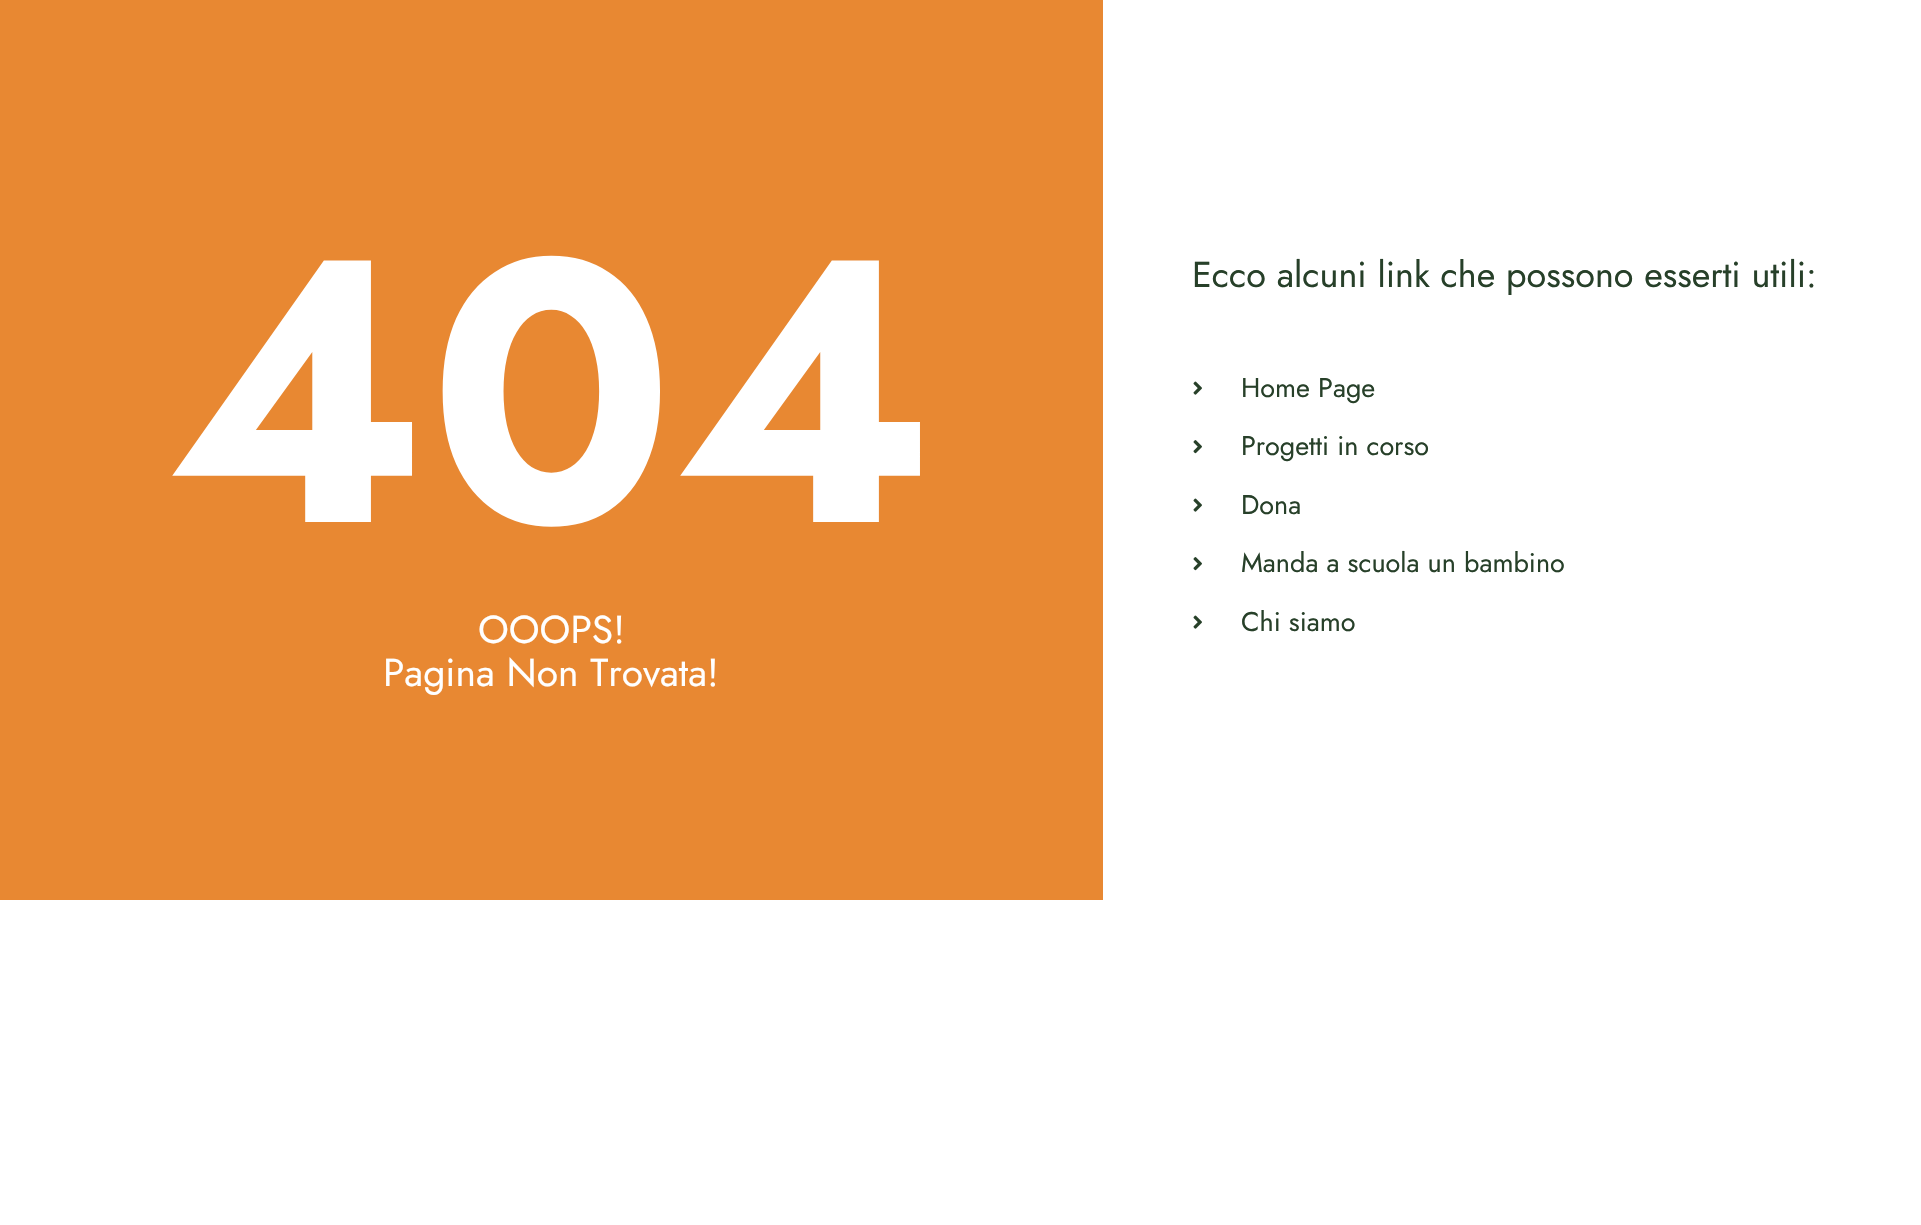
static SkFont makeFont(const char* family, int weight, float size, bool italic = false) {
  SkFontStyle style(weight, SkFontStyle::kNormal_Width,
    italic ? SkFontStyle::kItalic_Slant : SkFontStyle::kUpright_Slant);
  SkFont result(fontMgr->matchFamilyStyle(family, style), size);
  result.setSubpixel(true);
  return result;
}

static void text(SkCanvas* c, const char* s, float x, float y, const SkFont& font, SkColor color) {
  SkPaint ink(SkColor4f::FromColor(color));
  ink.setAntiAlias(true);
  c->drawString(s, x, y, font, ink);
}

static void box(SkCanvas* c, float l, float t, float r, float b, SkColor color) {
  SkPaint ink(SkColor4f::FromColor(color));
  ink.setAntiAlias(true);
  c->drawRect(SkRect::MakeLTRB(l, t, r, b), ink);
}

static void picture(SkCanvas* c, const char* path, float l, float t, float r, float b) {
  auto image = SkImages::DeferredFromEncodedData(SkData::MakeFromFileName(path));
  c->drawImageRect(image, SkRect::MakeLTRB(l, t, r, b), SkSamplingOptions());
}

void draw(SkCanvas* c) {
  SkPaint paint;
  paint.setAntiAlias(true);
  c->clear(0xffffffff);
  box(c, 0, 0, 1103, 900, 0xffe88832);
  SkFont face1 = makeFont("Jost", 700, 373.5f);
  text(c, "404", 167, 522, face1, 0xffffffff);
  SkFont face2 = makeFont("Jost", 400, 39);
  text(c, "OOOPS!", 478, 643, face2, 0xffffffff);
  text(c, "Pagina Non Trovata!", 383, 686, face2, 0xffffffff);
  SkFont face3 = makeFont("Jost", 400, 36);
  text(c, "Ecco alcuni link che possono esserti utili:", 1192, 287, face3, 0xff274029);
  picture(c, "img_01.png", 1193, 381, 1202, 395);
  SkFont face4 = makeFont("Jost", 400, 27);
  text(c, "Home Page", 1241, 397, face4, 0xff274029);
  picture(c, "img_02.png", 1193, 440, 1202, 454);
  text(c, "Progetti in corso", 1241, 455, face4, 0xff274029);
  picture(c, "img_01.png", 1193, 498, 1202, 512);
  text(c, "Dona", 1241, 514, face4, 0xff274029);
  picture(c, "img_02.png", 1193, 557, 1202, 571);
  text(c, "Manda a scuola un bambino", 1241, 572, face4, 0xff274029);
  picture(c, "img_01.png", 1193, 615, 1202, 629);
  text(c, "Chi siamo", 1241, 631, face4, 0xff274029);
}
